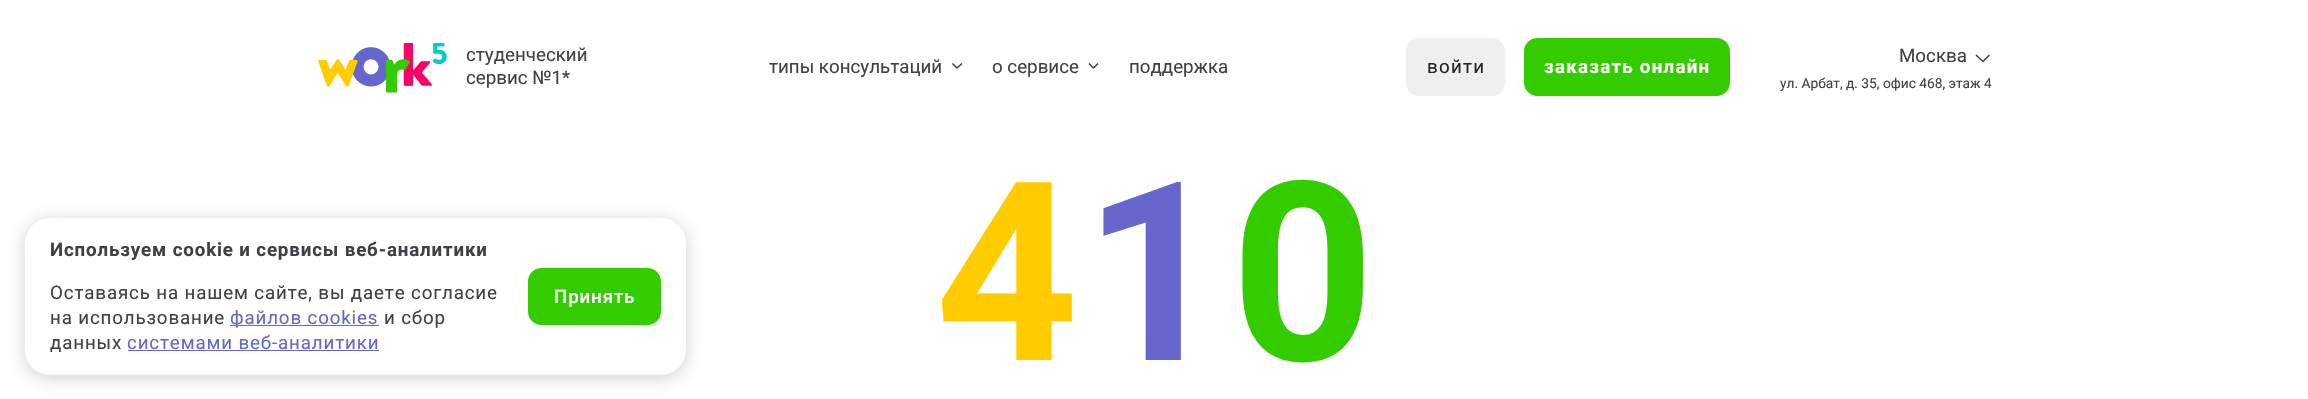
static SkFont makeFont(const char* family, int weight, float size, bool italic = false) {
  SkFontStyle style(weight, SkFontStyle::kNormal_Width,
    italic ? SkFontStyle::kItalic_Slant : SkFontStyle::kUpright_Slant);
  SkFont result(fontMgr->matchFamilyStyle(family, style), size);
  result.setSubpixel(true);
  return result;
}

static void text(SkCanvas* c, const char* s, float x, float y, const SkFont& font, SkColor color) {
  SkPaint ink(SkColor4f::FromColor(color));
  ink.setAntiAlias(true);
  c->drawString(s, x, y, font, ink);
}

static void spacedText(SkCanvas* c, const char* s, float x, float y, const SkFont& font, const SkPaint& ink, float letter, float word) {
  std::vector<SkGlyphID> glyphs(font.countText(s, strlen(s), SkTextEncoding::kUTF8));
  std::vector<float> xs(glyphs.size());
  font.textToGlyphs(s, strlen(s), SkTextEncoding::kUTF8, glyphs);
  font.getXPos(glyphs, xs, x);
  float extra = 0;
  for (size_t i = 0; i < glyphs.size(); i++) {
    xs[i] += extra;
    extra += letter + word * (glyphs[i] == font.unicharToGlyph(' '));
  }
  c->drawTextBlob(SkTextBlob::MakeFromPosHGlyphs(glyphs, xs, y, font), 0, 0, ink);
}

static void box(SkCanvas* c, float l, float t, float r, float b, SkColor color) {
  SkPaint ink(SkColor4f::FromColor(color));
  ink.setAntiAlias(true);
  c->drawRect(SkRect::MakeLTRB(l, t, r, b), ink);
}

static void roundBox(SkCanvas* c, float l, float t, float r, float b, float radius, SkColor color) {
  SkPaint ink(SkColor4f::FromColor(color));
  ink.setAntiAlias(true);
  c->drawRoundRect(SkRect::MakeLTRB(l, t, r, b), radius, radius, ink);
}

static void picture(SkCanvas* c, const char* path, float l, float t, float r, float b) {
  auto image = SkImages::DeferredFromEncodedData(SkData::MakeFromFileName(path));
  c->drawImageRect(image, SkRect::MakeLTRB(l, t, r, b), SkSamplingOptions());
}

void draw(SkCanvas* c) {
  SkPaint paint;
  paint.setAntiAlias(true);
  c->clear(0xffffffff);
  picture(c, "img_01.png", 318, 43, 447, 93);
  SkFont face1 = makeFont("Roboto", 400, 18.75f);
  text(c, "студенческий", 466, 61, face1, 0xff3e4146);
  text(c, "сервис №1*", 466, 84, face1, 0xff3e4146);
  text(c, "типы консультаций", 769, 73, face1, 0xff3e4146);
  paint.setStyle(SkPaint::kStroke_Style);
  paint.setStrokeWidth(1.6f);
  paint.setStrokeJoin(SkPaint::kBevel_Join);
  paint.setColor(0xff3e4146);
  c->drawPath(SkPathBuilder().moveTo(952.5f, 63.5f).lineTo(957, 68).lineTo(962, 63.5f).detach(), paint);
  text(c, "о сервисе", 992, 73, face1, 0xff3e4146);
  c->drawPath(SkPathBuilder().moveTo(1089, 63.5f).lineTo(1093.5f, 68).lineTo(1098, 63.5f).detach(), paint);
  text(c, "поддержка", 1129, 73, face1, 0xff3e4146);
  roundBox(c, 1406, 38, 1505, 96, 13, 0xffeef0f0);
  paint.setStyle(SkPaint::kFill_Style);
  paint.setColor(0xff212529);
  spacedText(c, "войти", 1427, 73, face1, paint, 1.25f, 0);
  paint.setColor(0xff33cc00);
  c->drawRoundRect(SkRect::MakeLTRB(1524.5f, 38.5f, 1729.5f, 95.5f), 12.5f, 12.5f, paint);
  paint.setStyle(SkPaint::kStroke_Style);
  paint.setStrokeWidth(1);
  paint.setStrokeJoin(SkPaint::kMiter_Join);
  c->drawRoundRect(SkRect::MakeLTRB(1524.5f, 38.5f, 1729.5f, 95.5f), 12.5f, 12.5f, paint);
  SkFont face2 = makeFont("Roboto", 700, 18.75f);
  paint.setStyle(SkPaint::kFill_Style);
  paint.setColor(0xffffffff);
  spacedText(c, "заказать онлайн", 1544, 73, face2, paint, 1.25f, 0);
  text(c, "Москва", 1899, 62, face1, 0xff3e4146);
  paint.setStyle(SkPaint::kStroke_Style);
  paint.setStrokeWidth(1.7f);
  paint.setStrokeCap(SkPaint::kRound_Cap);
  paint.setStrokeJoin(SkPaint::kRound_Join);
  paint.setColor(0xff464650);
  c->drawPath(SkPathBuilder().moveTo(1989, 55.5f).lineTo(1983, 61.5f).lineTo(1976.5f, 55.5f).detach(), paint);
  SkFont face3 = makeFont("Roboto", 400, 13.75f);
  text(c, "ул. Арбат, д. 35, офис 468, этаж 4", 1780, 88, face3, 0xff3e4146);
  paint.setStyle(SkPaint::kFill_Style);
  paint.setColor(0x403e4146);
  paint.setMaskFilter(SkMaskFilter::MakeBlur(kNormal_SkBlurStyle, 9));
  c->drawRoundRect(SkRect::MakeLTRB(25, 220, 686, 378), 25, 25, paint);
  paint.setMaskFilter(nullptr);
  roundBox(c, 25, 218, 686, 375, 25, 0xffffffff);
  paint.setColor(0xff3e4146);
  spacedText(c, "Используем cookie и сервисы веб-аналитики", 50, 256, face2, paint, 0.85f, 0);
  spacedText(c, "Оставаясь на нашем сайте, вы даете согласие", 50, 299, face1, paint, 0.85f, 0);
  spacedText(c, "на использование", 50, 324, face1, paint, 0.85f, 0);
  box(c, 230, 325, 379, 326, 0xff6666cc);
  paint.setColor(0xff6666cc);
  spacedText(c, "файлов cookies", 230, 324, face1, paint, 0.85f, 0);
  paint.setColor(0xff3e4146);
  spacedText(c, "и сбор", 384, 324, face1, paint, 0.85f, 0);
  spacedText(c, "данных", 50, 349, face1, paint, 0.85f, 0);
  paint.setColor(0xff6666cc);
  spacedText(c, "системами веб-аналитики", 127, 349, face1, paint, 0.85f, 0);
  box(c, 128, 350, 379, 351, 0xff6666cc);
  paint.setColor(0xff33cc00);
  c->drawRoundRect(SkRect::MakeLTRB(528.5f, 268.5f, 660.5f, 324.5f), 12.5f, 12.5f, paint);
  paint.setStyle(SkPaint::kStroke_Style);
  paint.setStrokeWidth(1);
  paint.setStrokeCap(SkPaint::kButt_Cap);
  paint.setStrokeJoin(SkPaint::kMiter_Join);
  c->drawRoundRect(SkRect::MakeLTRB(528.5f, 268.5f, 660.5f, 324.5f), 12.5f, 12.5f, paint);
  SkFont face4 = makeFont("Roboto", 500, 18.75f);
  paint.setStyle(SkPaint::kFill_Style);
  paint.setColor(0xffffffff);
  spacedText(c, "Принять", 554, 303, face4, paint, 0.85f, 0);
  SkFont face5 = makeFont("Roboto", 700, 250);
  text(c, "4", 935, 360, face5, 0xffffcc00);
  text(c, "1", 1083, 360, face5, 0xff6666cc);
  text(c, "0", 1231, 360, face5, 0xff33cc00);
}
